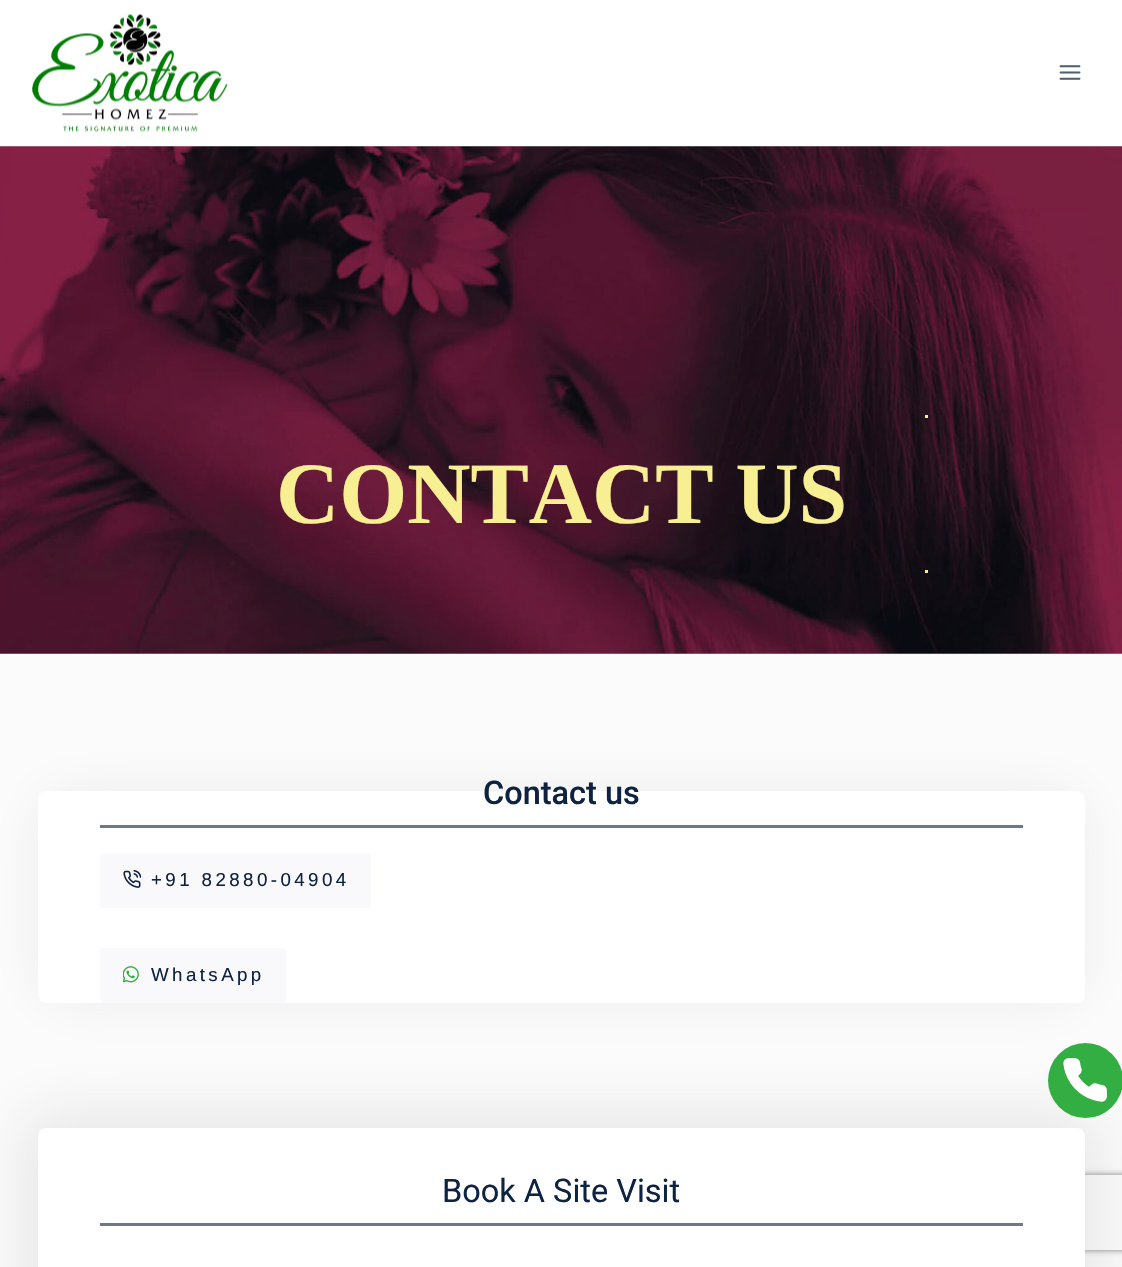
static SkFont makeFont(const char* family, int weight, float size, bool italic = false) {
  SkFontStyle style(weight, SkFontStyle::kNormal_Width,
    italic ? SkFontStyle::kItalic_Slant : SkFontStyle::kUpright_Slant);
  SkFont result(fontMgr->matchFamilyStyle(family, style), size);
  result.setSubpixel(true);
  return result;
}

static void text(SkCanvas* c, const char* s, float x, float y, const SkFont& font, SkColor color) {
  SkPaint ink(SkColor4f::FromColor(color));
  ink.setAntiAlias(true);
  c->drawString(s, x, y, font, ink);
}

static void spacedText(SkCanvas* c, const char* s, float x, float y, const SkFont& font, const SkPaint& ink, float letter, float word) {
  std::vector<SkGlyphID> glyphs(font.countText(s, strlen(s), SkTextEncoding::kUTF8));
  std::vector<float> xs(glyphs.size());
  font.textToGlyphs(s, strlen(s), SkTextEncoding::kUTF8, glyphs);
  font.getXPos(glyphs, xs, x);
  float extra = 0;
  for (size_t i = 0; i < glyphs.size(); i++) {
    xs[i] += extra;
    extra += letter + word * (glyphs[i] == font.unicharToGlyph(' '));
  }
  c->drawTextBlob(SkTextBlob::MakeFromPosHGlyphs(glyphs, xs, y, font), 0, 0, ink);
}

static void box(SkCanvas* c, float l, float t, float r, float b, SkColor color) {
  SkPaint ink(SkColor4f::FromColor(color));
  ink.setAntiAlias(true);
  c->drawRect(SkRect::MakeLTRB(l, t, r, b), ink);
}

static void roundBox(SkCanvas* c, float l, float t, float r, float b, float radius, SkColor color) {
  SkPaint ink(SkColor4f::FromColor(color));
  ink.setAntiAlias(true);
  c->drawRoundRect(SkRect::MakeLTRB(l, t, r, b), radius, radius, ink);
}

static void picture(SkCanvas* c, const char* path, float l, float t, float r, float b) {
  auto image = SkImages::DeferredFromEncodedData(SkData::MakeFromFileName(path));
  c->drawImageRect(image, SkRect::MakeLTRB(l, t, r, b), SkSamplingOptions());
}

void draw(SkCanvas* c) {
  SkPaint paint;
  paint.setAntiAlias(true);
  c->clear(0xffffffff);
  picture(c, "img_01.png", 32, 14, 228, 133);
  picture(c, "img_02.png", 1059, 65, 1081, 80);
  picture(c, "img_03.png", 0, 146, 1122, 654);
  box(c, 925, 415, 928, 418, 0xfff8ee92);
  SkFont face1 = makeFont("Liberation Serif", 700, 87.5f);
  text(c, "CONTACT US", 276, 523, face1, 0xfff8ee92);
  box(c, 925, 570, 928, 573, 0xfff8ee92);
  box(c, 0, 654, 1122, 1267, 0xfffbfbfc);
  paint.setColor(0x1a2b2322);
  paint.setMaskFilter(SkMaskFilter::MakeBlur(kNormal_SkBlurStyle, 31));
  c->drawRect(SkRect::MakeLTRB(50, 804, 1073, 990), paint);
  paint.setMaskFilter(nullptr);
  roundBox(c, 38, 791, 1085, 1003, 8, 0xffffffff);
  SkFont face2 = makeFont("Roboto", 500, 32.5f);
  text(c, "Contact us", 483, 804, face2, 0xff0e2341);
  box(c, 100, 825, 1023, 828, 0xff6c798b);
  roundBox(c, 100, 853, 371, 908, 4, 0xfff9f9fb);
  picture(c, "img_04.png", 123, 870, 141, 888);
  SkFont face3 = makeFont("Liberation Sans", 400, 18.75f);
  paint.setColor(0xff0e2341);
  spacedText(c, "+91 82880-04904", 151, 886, face3, paint, 3.4f, 0);
  roundBox(c, 100, 948, 286, 1003, 4, 0xfff9f9fb);
  picture(c, "img_05.png", 123, 966, 139, 983);
  spacedText(c, "WhatsApp", 151, 981, face3, paint, 3.4f, 0);
  paint.setColor(0x1a2b2322);
  paint.setMaskFilter(SkMaskFilter::MakeBlur(kNormal_SkBlurStyle, 31));
  c->drawRoundRect(SkRect::MakeLTRB(25, 1115, 1098, 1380), 20, 20, paint);
  paint.setMaskFilter(nullptr);
  c->save();
  c->clipPath(SkPathBuilder(SkPathFillType::kEvenOdd).moveTo(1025, 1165).lineTo(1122, 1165).lineTo(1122, 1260).lineTo(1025, 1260).close().moveTo(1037.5f, 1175).lineTo(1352.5f, 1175).cubicTo(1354, 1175, 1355, 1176, 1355, 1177.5f).lineTo(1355, 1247.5f).cubicTo(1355, 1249, 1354, 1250, 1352.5f, 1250).lineTo(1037.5f, 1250).cubicTo(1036, 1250, 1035, 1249, 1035, 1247.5f).lineTo(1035, 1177.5f).cubicTo(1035, 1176, 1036, 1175, 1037.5f, 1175).close().detach(), true);
  paint.setColor(0xff808080);
  paint.setMaskFilter(SkMaskFilter::MakeBlur(kNormal_SkBlurStyle, 3));
  c->drawRoundRect(SkRect::MakeLTRB(1035, 1175, 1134, 1250), 2.5f, 2.5f, paint);
  paint.setMaskFilter(nullptr);
  c->restore();
  roundBox(c, 38, 1128, 1085, 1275, 8, 0xffffffff);
  SkFont face4 = makeFont("Roboto", 400, 32.5f);
  text(c, "Book A Site Visit", 442, 1202, face4, 0xff0e2341);
  box(c, 100, 1223, 1023, 1226, 0xff6c798b);
  paint.setColor(0xff33ae43);
  c->drawCircle(1085.5f, 1080.5f, 37.5f, paint);
  picture(c, "img_06.png", 1063, 1058, 1107, 1102);
}
